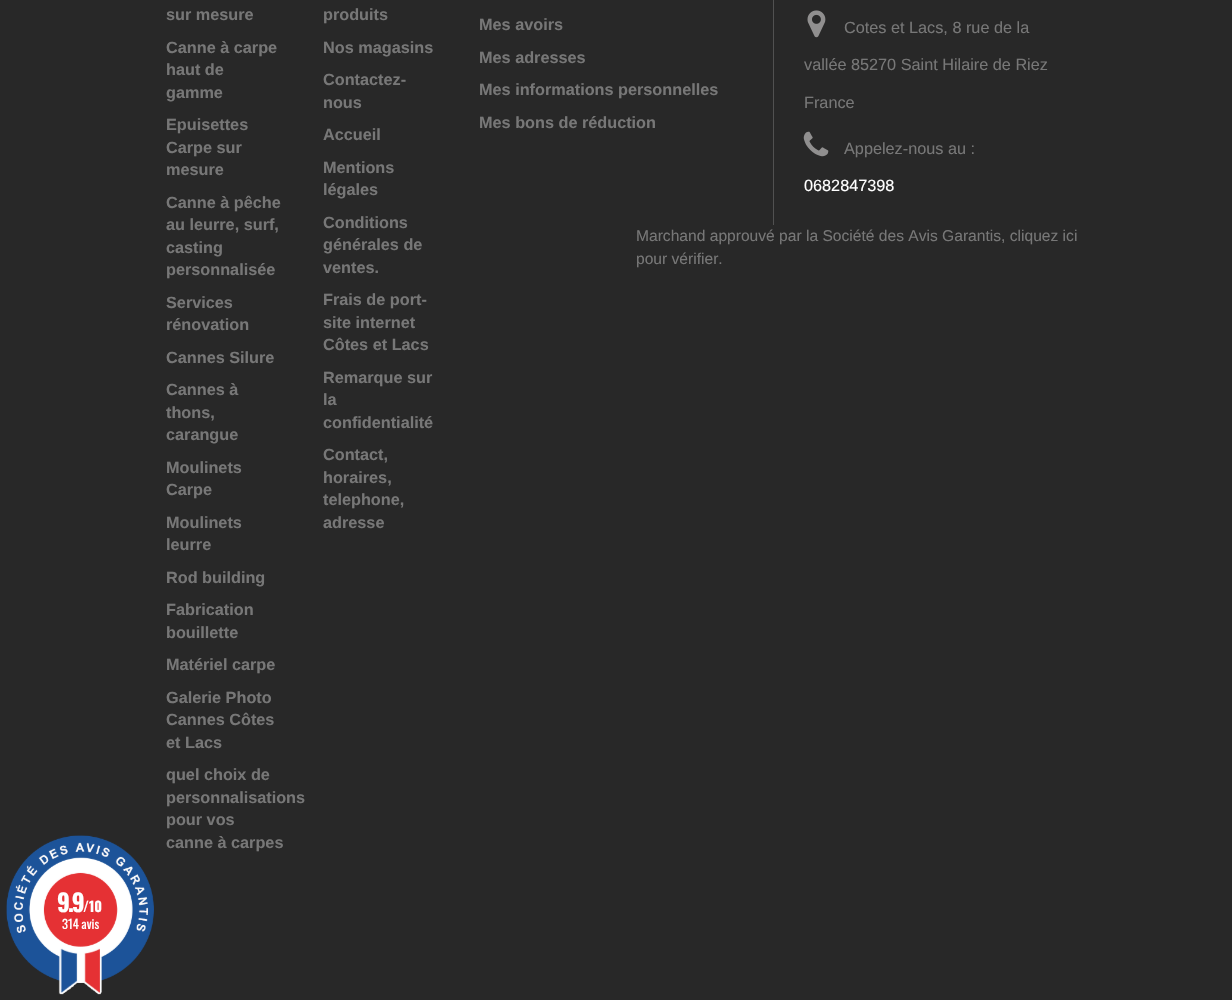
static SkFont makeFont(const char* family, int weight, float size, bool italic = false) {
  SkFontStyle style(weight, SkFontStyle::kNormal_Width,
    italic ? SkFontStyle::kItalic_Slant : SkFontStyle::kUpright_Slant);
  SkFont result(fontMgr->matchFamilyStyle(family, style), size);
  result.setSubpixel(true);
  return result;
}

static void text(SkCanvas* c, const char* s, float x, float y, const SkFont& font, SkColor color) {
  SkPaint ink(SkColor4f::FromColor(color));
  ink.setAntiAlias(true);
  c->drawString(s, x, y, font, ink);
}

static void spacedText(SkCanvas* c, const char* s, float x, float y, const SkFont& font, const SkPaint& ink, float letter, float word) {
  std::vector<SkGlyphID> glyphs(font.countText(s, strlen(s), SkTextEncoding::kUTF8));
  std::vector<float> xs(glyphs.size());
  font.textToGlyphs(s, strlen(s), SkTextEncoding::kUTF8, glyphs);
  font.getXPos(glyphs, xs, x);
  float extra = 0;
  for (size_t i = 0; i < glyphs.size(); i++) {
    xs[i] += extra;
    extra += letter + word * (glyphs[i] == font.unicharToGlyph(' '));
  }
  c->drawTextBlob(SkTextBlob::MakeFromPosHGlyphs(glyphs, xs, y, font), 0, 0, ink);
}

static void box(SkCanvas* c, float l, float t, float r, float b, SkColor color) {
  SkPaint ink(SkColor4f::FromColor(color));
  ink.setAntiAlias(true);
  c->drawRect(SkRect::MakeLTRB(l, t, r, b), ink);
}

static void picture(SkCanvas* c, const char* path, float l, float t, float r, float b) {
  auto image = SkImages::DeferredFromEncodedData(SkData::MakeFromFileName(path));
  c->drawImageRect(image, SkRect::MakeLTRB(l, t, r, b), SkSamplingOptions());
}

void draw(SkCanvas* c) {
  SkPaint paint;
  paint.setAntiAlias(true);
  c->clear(0xff282828);
  SkFont face1 = makeFont("Liberation Sans", 700, 16.25f);
  text(c, "sur mesure", 166, 20, face1, 0xff777777);
  text(c, "Canne à carpe", 166, 53, face1, 0xff777777);
  text(c, "haut de", 166, 75, face1, 0xff777777);
  text(c, "gamme", 166, 98, face1, 0xff777777);
  text(c, "Epuisettes", 166, 130, face1, 0xff777777);
  text(c, "Carpe sur", 166, 153, face1, 0xff777777);
  text(c, "mesure", 166, 175, face1, 0xff777777);
  text(c, "Canne à pêche", 166, 208, face1, 0xff777777);
  text(c, "au leurre, surf,", 166, 230, face1, 0xff777777);
  text(c, "casting", 166, 253, face1, 0xff777777);
  text(c, "personnalisée", 166, 275, face1, 0xff777777);
  text(c, "Services", 166, 308, face1, 0xff777777);
  text(c, "rénovation", 166, 330, face1, 0xff777777);
  text(c, "Cannes Silure", 166, 363, face1, 0xff777777);
  text(c, "Cannes à", 166, 395, face1, 0xff777777);
  text(c, "thons,", 166, 418, face1, 0xff777777);
  text(c, "carangue", 166, 440, face1, 0xff777777);
  text(c, "Moulinets", 166, 473, face1, 0xff777777);
  text(c, "Carpe", 166, 495, face1, 0xff777777);
  text(c, "Moulinets", 166, 528, face1, 0xff777777);
  text(c, "leurre", 166, 550, face1, 0xff777777);
  text(c, "Rod building", 166, 583, face1, 0xff777777);
  text(c, "Fabrication", 166, 615, face1, 0xff777777);
  text(c, "bouillette", 166, 638, face1, 0xff777777);
  text(c, "Matériel carpe", 166, 670, face1, 0xff777777);
  text(c, "Galerie Photo", 166, 703, face1, 0xff777777);
  text(c, "Cannes Côtes", 166, 725, face1, 0xff777777);
  text(c, "et Lacs", 166, 748, face1, 0xff777777);
  text(c, "quel choix de", 166, 780, face1, 0xff777777);
  text(c, "personnalisations", 166, 803, face1, 0xff777777);
  text(c, "pour vos", 166, 825, face1, 0xff777777);
  text(c, "canne à carpes", 166, 848, face1, 0xff777777);
  text(c, "produits", 323, 20, face1, 0xff777777);
  text(c, "Nos magasins", 323, 53, face1, 0xff777777);
  text(c, "Contactez-", 323, 85, face1, 0xff777777);
  text(c, "nous", 323, 108, face1, 0xff777777);
  text(c, "Accueil", 323, 140, face1, 0xff777777);
  text(c, "Mentions", 323, 173, face1, 0xff777777);
  text(c, "légales", 323, 195, face1, 0xff777777);
  text(c, "Conditions", 323, 228, face1, 0xff777777);
  text(c, "générales de", 323, 250, face1, 0xff777777);
  text(c, "ventes.", 323, 273, face1, 0xff777777);
  text(c, "Frais de port-", 323, 305, face1, 0xff777777);
  text(c, "site internet", 323, 328, face1, 0xff777777);
  text(c, "Côtes et Lacs", 323, 350, face1, 0xff777777);
  text(c, "Remarque sur", 323, 383, face1, 0xff777777);
  text(c, "la", 323, 405, face1, 0xff777777);
  text(c, "confidentialité", 323, 428, face1, 0xff777777);
  text(c, "Contact,", 323, 460, face1, 0xff777777);
  text(c, "horaires,", 323, 483, face1, 0xff777777);
  text(c, "telephone,", 323, 505, face1, 0xff777777);
  text(c, "adresse", 323, 528, face1, 0xff777777);
  text(c, "Mes avoirs", 479, 30, face1, 0xff777777);
  text(c, "Mes adresses", 479, 63, face1, 0xff777777);
  text(c, "Mes informations personnelles", 479, 95, face1, 0xff777777);
  text(c, "Mes bons de réduction", 479, 128, face1, 0xff777777);
  box(c, 773, 0, 774, 225, 0xff515151);
  picture(c, "img_01.png", 807, 10, 826, 38);
  SkFont face2 = makeFont("Liberation Sans", 400, 16.25f);
  text(c, "Cotes et Lacs, 8 rue de la", 844, 33, face2, 0xff777777);
  text(c, "vallée 85270 Saint Hilaire de Riez", 804, 70, face2, 0xff777777);
  text(c, "France", 804, 108, face2, 0xff777777);
  picture(c, "img_02.png", 803, 131, 829, 157);
  text(c, "Appelez-nous au :", 844, 154, face2, 0xff777777);
  text(c, "0682847398", 804, 191, face2, 0xffffffff);
  SkFont face3 = makeFont("Liberation Sans", 400, 15.6f);
  text(c, "Marchand approuvé par la Société des Avis Garantis, cliquez ici", 636, 241, face3, 0xff777777);
  text(c, "pour vérifier.", 636, 264, face3, 0xff777777);
  picture(c, "img_03.png", 6, 835, 154, 995);
  SkFont face4 = makeFont("Oswald", 700, 24);
  paint.setColor(0xffffffff);
  spacedText(c, "9.9", 57, 912, face4, paint, -2, 0);
  SkFont face5 = makeFont("Oswald", 700, 14);
  text(c, "/10", 83, 912, face5, 0xffffffff);
  SkFont face6 = makeFont("Oswald", 400, 12.5f);
  text(c, "314 avis", 62, 929, face6, 0xffffffff);
}
